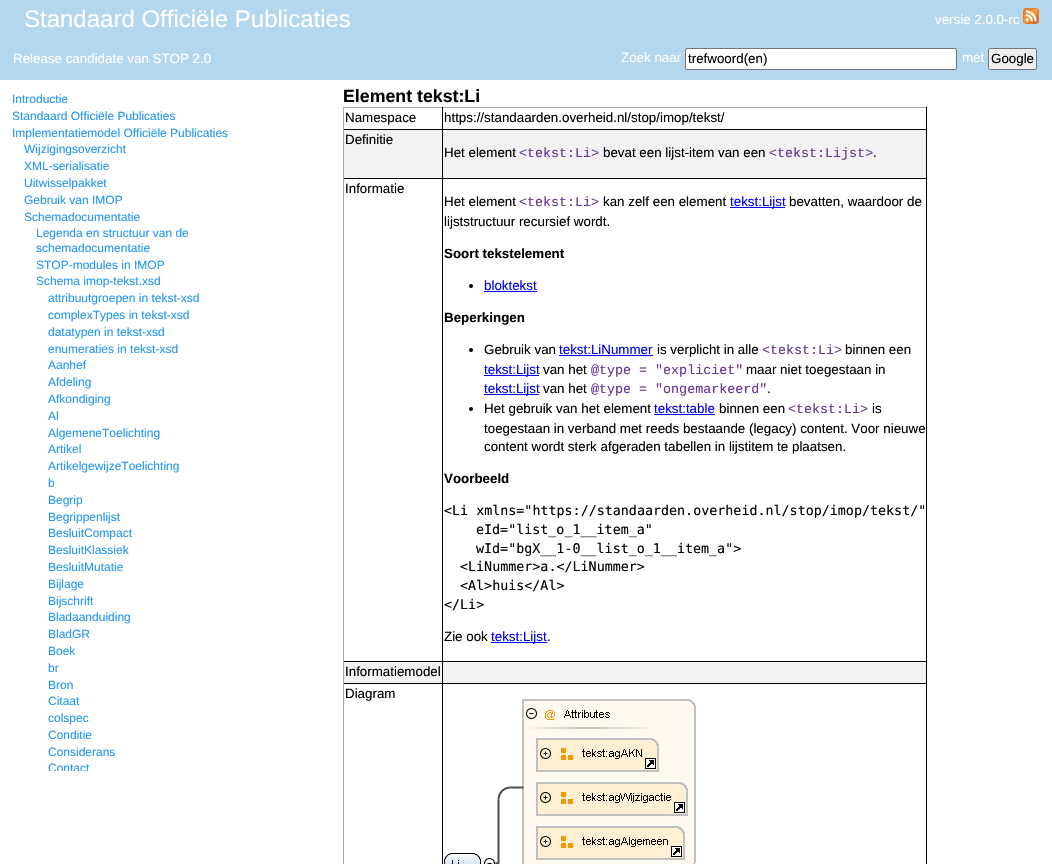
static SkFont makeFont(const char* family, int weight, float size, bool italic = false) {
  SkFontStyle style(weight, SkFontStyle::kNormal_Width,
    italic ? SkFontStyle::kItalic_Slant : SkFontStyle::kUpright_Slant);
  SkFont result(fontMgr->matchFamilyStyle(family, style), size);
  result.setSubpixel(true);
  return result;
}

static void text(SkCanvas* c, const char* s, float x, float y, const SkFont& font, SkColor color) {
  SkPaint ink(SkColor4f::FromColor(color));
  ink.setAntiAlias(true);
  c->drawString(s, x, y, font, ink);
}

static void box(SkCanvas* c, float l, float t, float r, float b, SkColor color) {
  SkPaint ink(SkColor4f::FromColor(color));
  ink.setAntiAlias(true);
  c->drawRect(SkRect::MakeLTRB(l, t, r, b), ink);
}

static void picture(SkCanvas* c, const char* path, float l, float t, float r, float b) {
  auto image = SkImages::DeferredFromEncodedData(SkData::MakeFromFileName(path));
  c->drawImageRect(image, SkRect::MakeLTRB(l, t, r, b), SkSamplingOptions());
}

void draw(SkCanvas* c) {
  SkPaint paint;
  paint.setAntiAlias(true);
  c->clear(0xffffffff);
  box(c, 0, 0, 1052, 80, 0xffb2d7ee);
  SkFont face1 = makeFont("Liberation Sans", 400, 24);
  text(c, "Standaard Officiële Publicaties", 24, 27, face1, 0xffffffff);
  SkFont face2 = makeFont("Liberation Sans", 400, 13.35f);
  text(c, "versie 2.0.0-rc", 935, 24, face2, 0xffffffff);
  picture(c, "img_01.png", 1023, 8, 1039, 24);
  text(c, "Release candidate van STOP 2.0", 13, 63, face2, 0xffffffff);
  text(c, "Zoek naar", 621, 62, face2, 0xffffffff);
  paint.setColor(0xffffffff);
  c->drawRoundRect(SkRect::MakeLTRB(685.5f, 48.5f, 956.5f, 69.5f), 1.5f, 1.5f, paint);
  paint.setStyle(SkPaint::kStroke_Style);
  paint.setStrokeWidth(1);
  paint.setColor(0xff767676);
  c->drawRoundRect(SkRect::MakeLTRB(685.5f, 48.5f, 956.5f, 69.5f), 1.5f, 1.5f, paint);
  text(c, "trefwoord(en)", 688, 63, face2, 0xff000000);
  text(c, "met", 962, 62, face2, 0xffffffff);
  paint.setStyle(SkPaint::kFill_Style);
  paint.setColor(0xffefefef);
  c->drawRoundRect(SkRect::MakeLTRB(988.5f, 48.5f, 1036.5f, 69.5f), 1.5f, 1.5f, paint);
  paint.setStyle(SkPaint::kStroke_Style);
  paint.setColor(0xff767676);
  c->drawRoundRect(SkRect::MakeLTRB(988.5f, 48.5f, 1036.5f, 69.5f), 1.5f, 1.5f, paint);
  text(c, "Google", 991, 63, face2, 0xff000000);
  SkFont face3 = makeFont("Liberation Sans", 400, 12);
  text(c, "Introductie", 12, 103, face3, 0xff2196f3);
  text(c, "Standaard Officiële Publicaties", 12, 120, face3, 0xff2196f3);
  text(c, "Implementatiemodel Officiële Publicaties", 12, 137, face3, 0xff2196f3);
  text(c, "Wijzigingsoverzicht", 24, 153, face3, 0xff2196f3);
  text(c, "XML-serialisatie", 24, 170, face3, 0xff2196f3);
  text(c, "Uitwisselpakket", 24, 187, face3, 0xff2196f3);
  text(c, "Gebruik van IMOP", 24, 204, face3, 0xff2196f3);
  text(c, "Schemadocumentatie", 24, 221, face3, 0xff2196f3);
  text(c, "Legenda en structuur van de", 36, 237, face3, 0xff2196f3);
  text(c, "schemadocumentatie", 36, 252, face3, 0xff2196f3);
  text(c, "STOP-modules in IMOP", 36, 269, face3, 0xff2196f3);
  text(c, "Schema imop-tekst.xsd", 36, 285, face3, 0xff2196f3);
  text(c, "attribuutgroepen in tekst-xsd", 48, 302, face3, 0xff2196f3);
  text(c, "complexTypes in tekst-xsd", 48, 319, face3, 0xff2196f3);
  text(c, "datatypen in tekst-xsd", 48, 336, face3, 0xff2196f3);
  text(c, "enumeraties in tekst-xsd", 48, 353, face3, 0xff2196f3);
  text(c, "Aanhef", 48, 369, face3, 0xff2196f3);
  text(c, "Afdeling", 48, 386, face3, 0xff2196f3);
  text(c, "Afkondiging", 48, 403, face3, 0xff2196f3);
  text(c, "Al", 48, 420, face3, 0xff2196f3);
  text(c, "AlgemeneToelichting", 48, 437, face3, 0xff2196f3);
  text(c, "Artikel", 48, 453, face3, 0xff2196f3);
  text(c, "ArtikelgewijzeToelichting", 48, 470, face3, 0xff2196f3);
  text(c, "b", 48, 487, face3, 0xff2196f3);
  text(c, "Begrip", 48, 504, face3, 0xff2196f3);
  text(c, "Begrippenlijst", 48, 521, face3, 0xff2196f3);
  text(c, "BesluitCompact", 48, 537, face3, 0xff2196f3);
  text(c, "BesluitKlassiek", 48, 554, face3, 0xff2196f3);
  text(c, "BesluitMutatie", 48, 571, face3, 0xff2196f3);
  text(c, "Bijlage", 48, 588, face3, 0xff2196f3);
  text(c, "Bijschrift", 48, 605, face3, 0xff2196f3);
  text(c, "Bladaanduiding", 48, 621, face3, 0xff2196f3);
  text(c, "BladGR", 48, 638, face3, 0xff2196f3);
  text(c, "Boek", 48, 655, face3, 0xff2196f3);
  text(c, "br", 48, 672, face3, 0xff2196f3);
  text(c, "Bron", 48, 689, face3, 0xff2196f3);
  text(c, "Citaat", 48, 705, face3, 0xff2196f3);
  text(c, "colspec", 48, 722, face3, 0xff2196f3);
  text(c, "Conditie", 48, 739, face3, 0xff2196f3);
  text(c, "Considerans", 48, 756, face3, 0xff2196f3);
  c->save();
  c->clipRect(SkRect::MakeLTRB(0, 80, 300, 771));
  text(c, "Contact", 48, 772, face3, 0xff2196f3);
  c->restore();
  SkFont face4 = makeFont("Liberation Sans", 700, 17.75f);
  text(c, "Element tekst:Li", 343, 102, face4, 0xff000000);
  box(c, 343, 107, 927, 108, 0xffa9a9a9);
  box(c, 926, 129, 927, 864, 0xff000000);
  box(c, 926, 107, 927, 130, 0xff000000);
  box(c, 344, 130, 926, 178, 0xfff2f2f2);
  box(c, 344, 662, 926, 683, 0xfff2f2f2);
  box(c, 442, 683, 443, 864, 0xff000000);
  box(c, 442, 683, 927, 684, 0xff000000);
  box(c, 442, 661, 443, 684, 0xff000000);
  box(c, 442, 661, 927, 662, 0xff000000);
  box(c, 442, 178, 443, 662, 0xff000000);
  box(c, 442, 178, 927, 179, 0xff000000);
  box(c, 442, 129, 443, 179, 0xff000000);
  box(c, 442, 129, 927, 130, 0xff000000);
  box(c, 442, 107, 443, 130, 0xff000000);
  box(c, 343, 683, 344, 864, 0xffa9a9a9);
  box(c, 343, 683, 443, 684, 0xff000000);
  box(c, 343, 661, 344, 684, 0xffa9a9a9);
  box(c, 343, 661, 443, 662, 0xff000000);
  box(c, 343, 178, 344, 662, 0xffa9a9a9);
  box(c, 343, 178, 443, 179, 0xff000000);
  box(c, 343, 129, 344, 179, 0xffa9a9a9);
  box(c, 343, 129, 443, 130, 0xff000000);
  box(c, 343, 107, 344, 130, 0xffa9a9a9);
  text(c, "Namespace", 345, 122, face2, 0xff000000);
  text(c, "https://standaarden.overheid.nl/stop/imop/tekst/", 444, 122, face2, 0xff000000);
  text(c, "Definitie", 345, 144, face2, 0xff000000);
  text(c, "Het element", 444, 157, face2, 0xff000000);
  SkFont face5 = makeFont("Liberation Mono", 400, 13.35f);
  text(c, "<tekst:Li>", 519, 157, face5, 0xff663399);
  text(c, "bevat een lijst-item van een", 603, 157, face2, 0xff000000);
  text(c, "<tekst:Lijst>", 769, 157, face5, 0xff663399);
  text(c, ".", 873, 157, face2, 0xff000000);
  text(c, "Informatie", 345, 193, face2, 0xff000000);
  text(c, "Het element", 444, 206, face2, 0xff000000);
  text(c, "<tekst:Li>", 519, 206, face5, 0xff663399);
  text(c, "kan zelf een element", 603, 206, face2, 0xff000000);
  box(c, 730, 207, 785, 208, 0xff0000ee);
  text(c, "tekst:Lijst", 730, 206, face2, 0xff0000ee);
  text(c, "bevatten, waardoor de", 789, 206, face2, 0xff000000);
  text(c, "lijststructuur recursief wordt.", 444, 226, face2, 0xff000000);
  SkFont face6 = makeFont("Liberation Sans", 700, 13.35f);
  text(c, "Soort tekstelement", 444, 258, face6, 0xff000000);
  paint.setStyle(SkPaint::kFill_Style);
  paint.setColor(0xff000000);
  c->drawCircle(471, 286, 2, paint);
  text(c, "bloktekst", 484, 290, face2, 0xff0000ee);
  box(c, 484, 291, 537, 292, 0xff0000ee);
  text(c, "Beperkingen", 444, 322, face6, 0xff000000);
  c->drawCircle(471, 350, 2, paint);
  text(c, "Gebruik van", 484, 354, face2, 0xff000000);
  text(c, "tekst:LiNummer", 559, 354, face2, 0xff0000ee);
  box(c, 559, 355, 653, 356, 0xff0000ee);
  text(c, "is verplicht in alle", 657, 354, face2, 0xff000000);
  text(c, "<tekst:Li>", 762, 354, face5, 0xff663399);
  text(c, "binnen een", 845, 354, face2, 0xff000000);
  box(c, 484, 375, 539, 376, 0xff0000ee);
  text(c, "tekst:Lijst", 484, 374, face2, 0xff0000ee);
  text(c, "van het", 543, 374, face2, 0xff000000);
  text(c, "@type = \"expliciet\"", 591, 374, face5, 0xff663399);
  text(c, "maar niet toegestaan in", 746, 374, face2, 0xff000000);
  box(c, 484, 394, 539, 395, 0xff0000ee);
  text(c, "tekst:Lijst", 484, 393, face2, 0xff0000ee);
  text(c, "van het", 543, 393, face2, 0xff000000);
  text(c, "@type = \"ongemarkeerd\"", 591, 393, face5, 0xff663399);
  text(c, ".", 767, 393, face2, 0xff000000);
  c->drawCircle(471, 409, 2, paint);
  text(c, "Het gebruik van het element", 484, 413, face2, 0xff000000);
  text(c, "tekst:table", 654, 413, face2, 0xff0000ee);
  box(c, 654, 414, 715, 415, 0xff0000ee);
  text(c, "binnen een", 719, 413, face2, 0xff000000);
  text(c, "<tekst:Li>", 788, 413, face5, 0xff663399);
  text(c, "is", 872, 413, face2, 0xff000000);
  text(c, "toegestaan in verband met reeds bestaande (legacy) content. Voor nieuwe", 484, 433, face2, 0xff000000);
  text(c, "content wordt sterk afgeraden tabellen in lijstitem te plaatsen.", 484, 451, face2, 0xff000000);
  text(c, "Voorbeeld", 444, 483, face6, 0xff000000);
  SkFont face7 = makeFont("DejaVu Sans Mono", 400, 13.35f);
  text(c, "<Li xmlns=\"https://standaarden.overheid.nl/stop/imop/tekst/\"", 444, 515, face7, 0xff000000);
  text(c, "eId=\"list_o_1__item_a\"", 476, 534, face7, 0xff000000);
  text(c, "wId=\"bgX__1-0__list_o_1__item_a\">", 476, 553, face7, 0xff000000);
  text(c, "<LiNummer>a.</LiNummer>", 460, 571, face7, 0xff000000);
  text(c, "<Al>huis</Al>", 460, 590, face7, 0xff000000);
  text(c, "</Li>", 444, 609, face7, 0xff000000);
  text(c, "Zie ook", 444, 641, face2, 0xff000000);
  box(c, 491, 642, 547, 643, 0xff0000ee);
  text(c, "tekst:Lijst", 491, 641, face2, 0xff0000ee);
  text(c, ".", 547, 641, face2, 0xff000000);
  text(c, "Informatiemodel", 345, 676, face2, 0xff000000);
  text(c, "Diagram", 345, 698, face2, 0xff000000);
  picture(c, "img_02.png", 444, 699, 696, 864);
}
